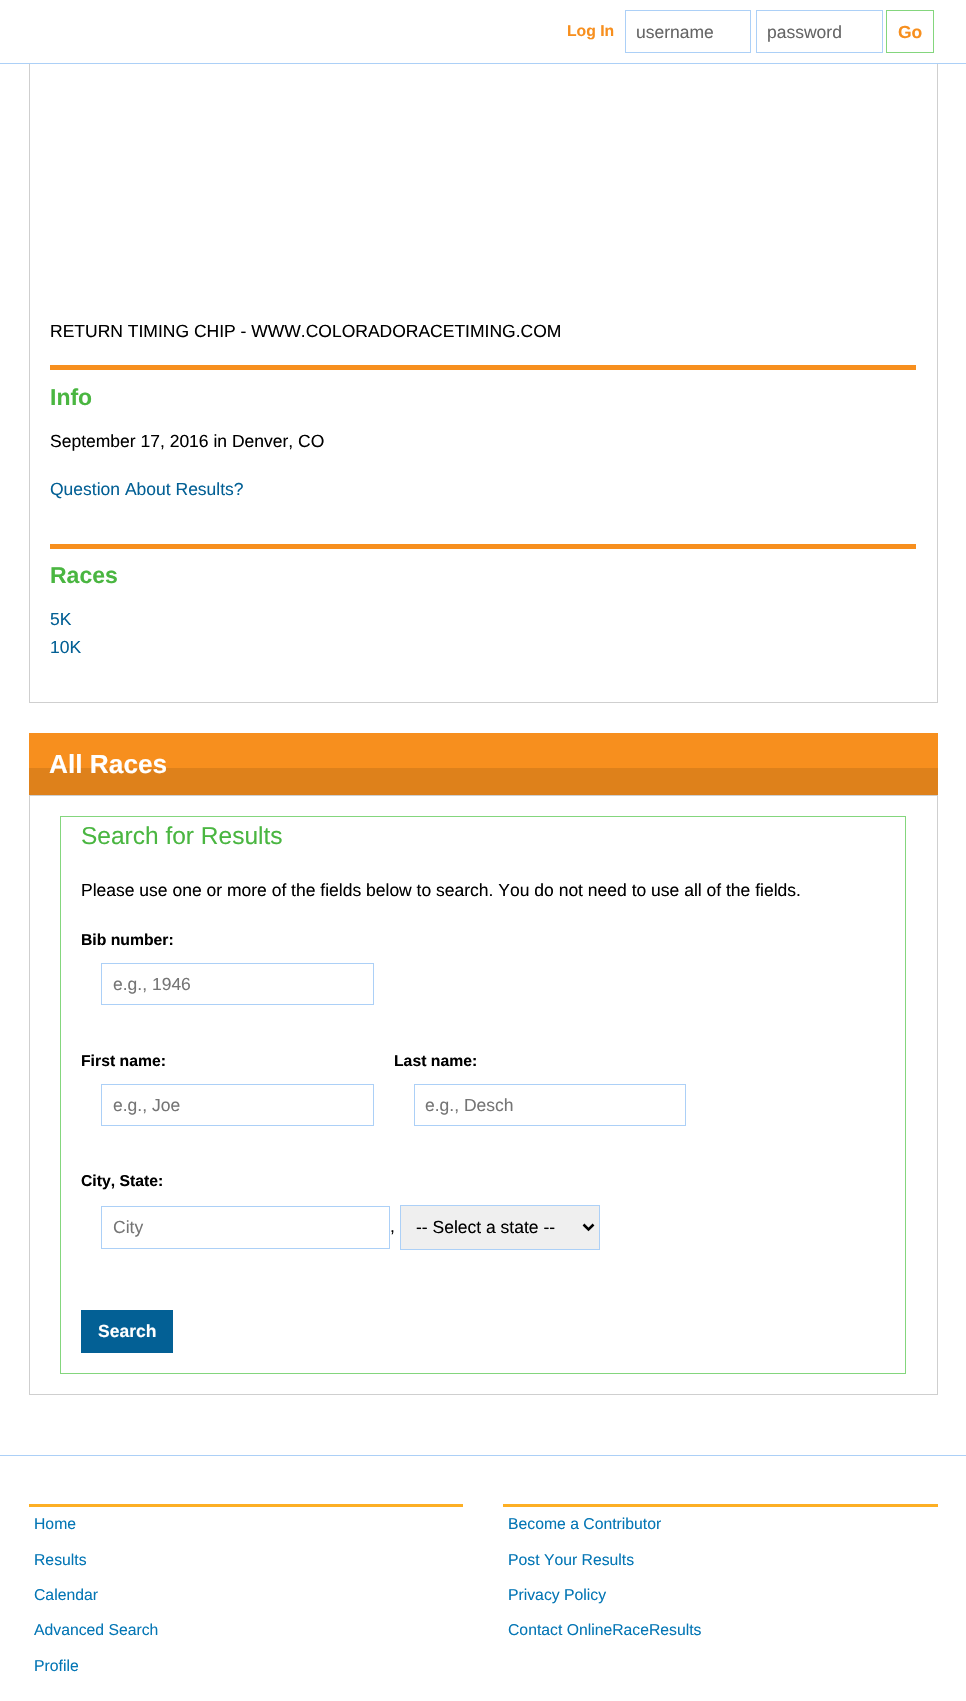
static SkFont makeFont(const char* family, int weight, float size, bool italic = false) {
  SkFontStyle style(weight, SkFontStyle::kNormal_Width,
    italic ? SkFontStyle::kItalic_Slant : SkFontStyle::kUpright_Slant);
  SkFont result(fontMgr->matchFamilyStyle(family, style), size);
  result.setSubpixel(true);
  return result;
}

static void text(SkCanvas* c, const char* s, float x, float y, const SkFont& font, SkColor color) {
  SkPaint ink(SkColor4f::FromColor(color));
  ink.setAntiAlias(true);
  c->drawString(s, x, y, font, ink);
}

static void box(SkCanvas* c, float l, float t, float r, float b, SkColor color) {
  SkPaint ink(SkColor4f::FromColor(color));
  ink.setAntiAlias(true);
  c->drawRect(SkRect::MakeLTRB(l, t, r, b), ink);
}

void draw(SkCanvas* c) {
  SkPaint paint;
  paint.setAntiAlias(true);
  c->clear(0xffffffff);
  paint.setStyle(SkPaint::kStroke_Style);
  paint.setStrokeWidth(1);
  paint.setColor(0xffcfcfcf);
  c->drawRect(SkRect::MakeLTRB(29.5f, -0.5f, 937.5f, 702.5f), paint);
  box(c, 29, 0, 938, 63, 0xffffffff);
  box(c, 0, 63, 966, 64, 0xffacd0f7);
  SkFont face1 = makeFont("Liberation Sans", 700, 15.75f);
  text(c, "Log In", 567, 36, face1, 0xfff78f1e);
  paint.setColor(0xffacd0f7);
  c->drawRect(SkRect::MakeLTRB(625.5f, 10.5f, 750.5f, 52.5f), paint);
  SkFont face2 = makeFont("Liberation Sans", 400, 17.5f);
  text(c, "username", 636, 38, face2, 0xff666666);
  c->drawRect(SkRect::MakeLTRB(756.5f, 10.5f, 882.5f, 52.5f), paint);
  text(c, "password", 767, 38, face2, 0xff666666);
  paint.setColor(0xff84d67d);
  c->drawRect(SkRect::MakeLTRB(886.5f, 10.5f, 933.5f, 52.5f), paint);
  SkFont face3 = makeFont("Liberation Sans", 700, 17.5f);
  text(c, "Go", 898, 38, face3, 0xfff78f1e);
  text(c, "RETURN TIMING CHIP - WWW.COLORADORACETIMING.COM", 50, 337, face2, 0xff000000);
  box(c, 50, 365, 916, 370, 0xfff78f1e);
  SkFont face4 = makeFont("Liberation Sans", 700, 23);
  text(c, "Info", 50, 405, face4, 0xff4ab641);
  text(c, "September 17, 2016 in Denver, CO", 50, 447, face2, 0xff000000);
  text(c, "Question About Results?", 50, 495, face2, 0xff036095);
  box(c, 50, 544, 916, 549, 0xfff78f1e);
  text(c, "Races", 50, 583, face4, 0xff4ab641);
  text(c, "5K", 50, 625, face2, 0xff036095);
  text(c, "10K", 50, 653, face2, 0xff036095);
  box(c, 29, 733, 938, 768, 0xfff78f1e);
  box(c, 29, 768, 938, 795, 0xffde811b);
  SkFont face5 = makeFont("Liberation Sans", 700, 26.25f);
  text(c, "All Races", 49, 773, face5, 0xffffffff);
  paint.setColor(0xffcfcfcf);
  c->drawRect(SkRect::MakeLTRB(29.5f, 795.5f, 937.5f, 1394.5f), paint);
  paint.setColor(0xff84d67d);
  c->drawRect(SkRect::MakeLTRB(60.5f, 816.5f, 905.5f, 1373.5f), paint);
  SkFont face6 = makeFont("Liberation Sans", 400, 24.5f);
  text(c, "Search for Results", 81, 844, face6, 0xff4ab641);
  text(c, "Please use one or more of the fields below to search. You do not need to use all of the fields.", 81, 896, face2, 0xff000000);
  text(c, "Bib number:", 81, 945, face1, 0xff000000);
  paint.setColor(0xffacd0f7);
  c->drawRect(SkRect::MakeLTRB(101.5f, 963.5f, 373.5f, 1004.5f), paint);
  text(c, "e.g., 1946", 113, 990, face2, 0xff757575);
  text(c, "First name:", 81, 1066, face1, 0xff000000);
  c->drawRect(SkRect::MakeLTRB(101.5f, 1084.5f, 373.5f, 1125.5f), paint);
  text(c, "e.g., Joe", 113, 1111, face2, 0xff757575);
  text(c, "Last name:", 394, 1066, face1, 0xff000000);
  c->drawRect(SkRect::MakeLTRB(414.5f, 1084.5f, 685.5f, 1125.5f), paint);
  text(c, "e.g., Desch", 425, 1111, face2, 0xff757575);
  text(c, "City, State:", 81, 1186, face1, 0xff000000);
  c->drawRect(SkRect::MakeLTRB(101.5f, 1206.5f, 389.5f, 1248.5f), paint);
  text(c, "City", 113, 1233, face2, 0xff757575);
  text(c, ",", 390, 1232, face2, 0xff000000);
  paint.setStyle(SkPaint::kFill_Style);
  paint.setColor(0xffefefef);
  c->drawRect(SkRect::MakeLTRB(400.5f, 1205.5f, 599.5f, 1249.5f), paint);
  paint.setStyle(SkPaint::kStroke_Style);
  paint.setColor(0xffacd0f7);
  c->drawRect(SkRect::MakeLTRB(400.5f, 1205.5f, 599.5f, 1249.5f), paint);
  paint.setStrokeWidth(2.5f);
  paint.setColor(0xff000000);
  c->drawPath(SkPathBuilder().moveTo(583.5f, 1224.5f).lineTo(588.5f, 1229.5f).lineTo(593.5f, 1224.5f).detach(), paint);
  text(c, "-- Select a state --", 416, 1233, face2, 0xff000000);
  box(c, 81, 1310, 173, 1353, 0xff036095);
  text(c, "Search", 98, 1337, face3, 0xffffffff);
  box(c, 0, 1455, 966, 1456, 0xffacd0f7);
  box(c, 29, 1504, 463, 1507, 0xfffdaf24);
  SkFont face7 = makeFont("Liberation Sans", 400, 15.75f);
  text(c, "Home", 34, 1529, face7, 0xff0476b5);
  text(c, "Results", 34, 1565, face7, 0xff0476b5);
  text(c, "Calendar", 34, 1600, face7, 0xff0476b5);
  text(c, "Advanced Search", 34, 1635, face7, 0xff0476b5);
  text(c, "Profile", 34, 1671, face7, 0xff0476b5);
  box(c, 503, 1504, 938, 1507, 0xfffdaf24);
  text(c, "Become a Contributor", 508, 1529, face7, 0xff0476b5);
  text(c, "Post Your Results", 508, 1565, face7, 0xff0476b5);
  text(c, "Privacy Policy", 508, 1600, face7, 0xff0476b5);
  text(c, "Contact OnlineRaceResults", 508, 1635, face7, 0xff0476b5);
}
